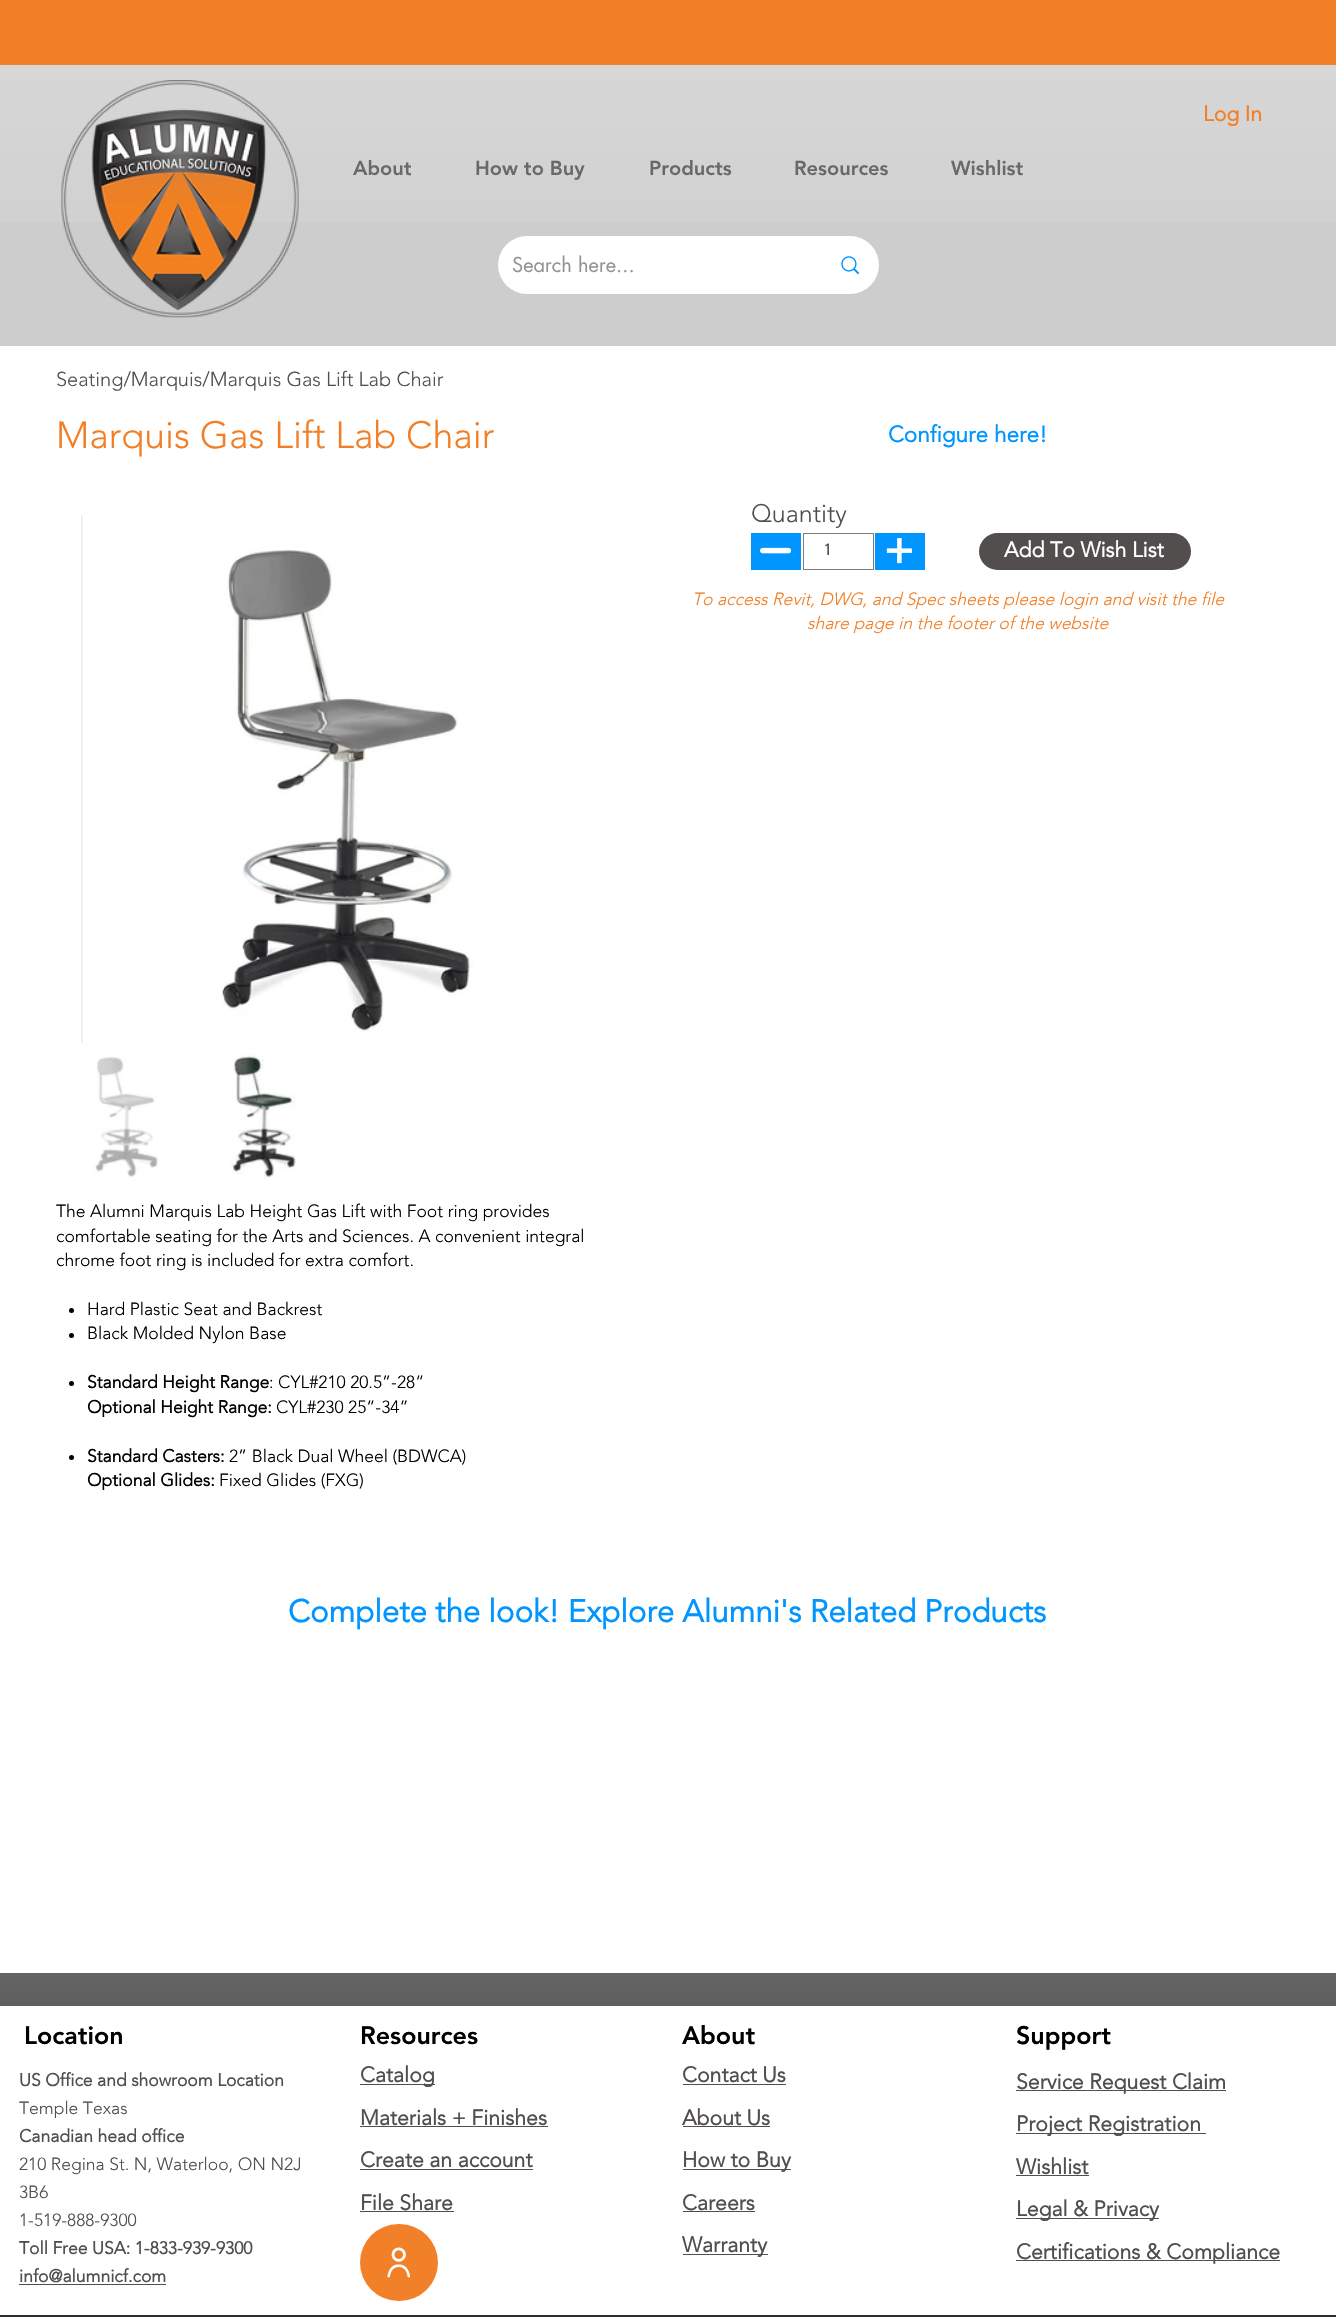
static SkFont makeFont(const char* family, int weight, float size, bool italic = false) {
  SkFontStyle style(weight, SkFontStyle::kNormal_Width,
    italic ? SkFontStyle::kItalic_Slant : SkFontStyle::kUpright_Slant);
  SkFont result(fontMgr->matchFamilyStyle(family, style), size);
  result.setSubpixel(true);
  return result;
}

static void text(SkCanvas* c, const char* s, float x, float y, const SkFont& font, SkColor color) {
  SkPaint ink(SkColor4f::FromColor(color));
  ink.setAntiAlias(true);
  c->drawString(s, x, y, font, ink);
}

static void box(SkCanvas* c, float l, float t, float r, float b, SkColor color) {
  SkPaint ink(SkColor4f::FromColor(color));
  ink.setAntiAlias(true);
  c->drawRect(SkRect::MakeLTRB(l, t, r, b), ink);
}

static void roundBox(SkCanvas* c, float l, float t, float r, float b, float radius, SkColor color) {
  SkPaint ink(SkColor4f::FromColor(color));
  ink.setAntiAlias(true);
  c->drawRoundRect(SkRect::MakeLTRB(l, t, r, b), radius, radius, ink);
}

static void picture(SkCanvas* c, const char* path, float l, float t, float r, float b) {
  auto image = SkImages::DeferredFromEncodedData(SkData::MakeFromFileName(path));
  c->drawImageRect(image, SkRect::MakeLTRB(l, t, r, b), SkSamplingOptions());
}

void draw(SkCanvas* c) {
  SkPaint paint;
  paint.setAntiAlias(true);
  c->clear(0xffffffff);
  box(c, 0, 65, 1336, 346, 0xffcecdcd);
  picture(c, "img_01.png", 0, 65, 1336, 222);
  box(c, 0, 0, 1336, 65, 0xfff28028);
  picture(c, "img_02.png", 61, 80, 299, 318);
  SkFont face1 = makeFont("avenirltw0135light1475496", 700, 21.25f);
  text(c, "Log In", 1203, 121, face1, 0xfff27f26);
  SkFont face2 = makeFont("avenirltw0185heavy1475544", 900, 20);
  text(c, "About", 353, 175, face2, 0xff696969);
  text(c, "How to Buy", 475, 175, face2, 0xff696969);
  text(c, "Products", 649, 175, face2, 0xff696969);
  text(c, "Resources", 794, 175, face2, 0xff696969);
  text(c, "Wishlist", 951, 175, face2, 0xff696969);
  roundBox(c, 498, 236, 879, 294, 29, 0xffffffff);
  SkFont face3 = makeFont("futura", 400, 20);
  text(c, "Search here...", 512, 272, face3, 0xff949494);
  picture(c, "img_03.png", 841, 256, 860, 274);
  SkFont face4 = makeFont("avenirltw0135light1475496", 300, 20);
  text(c, "Seating/Marquis/Marquis Gas Lift Lab Chair", 56, 386, face4, 0xff524e4e);
  SkFont face5 = makeFont("avenirltw0135light1475496", 300, 37.5f);
  text(c, "Marquis Gas Lift Lab Chair", 56, 448, face5, 0xfff27f26);
  SkFont face6 = makeFont("avenirltw0135light1475496", 700, 22.5f);
  text(c, "Configure here!", 888, 442, face6, 0xff0095ff);
  SkFont face7 = makeFont("avenirltw0135light1475496", 300, 25);
  text(c, "Quantity", 751, 522, face7, 0xff524e4e);
  box(c, 751, 533, 801, 570, 0xff0095ff);
  picture(c, "img_04.png", 760, 547, 791, 554);
  paint.setStyle(SkPaint::kStroke_Style);
  paint.setStrokeWidth(1);
  paint.setColor(0xff7b7d7f);
  c->drawRect(SkRect::MakeLTRB(803.5f, 533.5f, 873.5f, 569.5f), paint);
  SkFont face8 = makeFont("League Spartan", 400, 17.5f);
  text(c, "1", 825, 555, face8, 0xff524e4e);
  box(c, 875, 533, 925, 570, 0xff0095ff);
  picture(c, "img_05.png", 886, 538, 912, 564);
  roundBox(c, 979, 533, 1191, 570, 18.5f, 0xff524e4e);
  text(c, "Add To Wish List", 1004, 557, face1, 0xffffffff);
  SkFont face9 = makeFont("avenirltw0135light1475496", 300, 17.5f, true);
  text(c, "To access Revit, DWG, and Spec sheets please login and visit the file", 692, 605, face9, 0xfff27f26);
  text(c, "share page in the footer of the website", 807, 629, face9, 0xfff27f26);
  box(c, 81, 515, 83, 1043, 0xffedecec);
  picture(c, "img_06.png", 82, 515, 610, 1043);
  picture(c, "img_07.png", 93, 1054, 159, 1179);
  picture(c, "img_08.png", 231, 1053, 296, 1179);
  SkFont face10 = makeFont("avenirltw0135light1475496", 300, 17.5f);
  text(c, "The Alumni Marquis Lab Height Gas Lift with Foot ring provides", 56, 1217, face10, 0xff000000);
  text(c, "comfortable seating for the Arts and Sciences. A convenient integral", 56, 1242, face10, 0xff000000);
  text(c, "chrome foot ring is included for extra comfort.", 56, 1266, face10, 0xff000000);
  paint.setStyle(SkPaint::kFill_Style);
  paint.setColor(0xff000000);
  c->drawCircle(71.5f, 1310.5f, 2.5f, paint);
  text(c, "Hard Plastic Seat and Backrest", 87, 1315, face10, 0xff000000);
  c->drawCircle(71.5f, 1335.5f, 2.5f, paint);
  text(c, "Black Molded Nylon Base", 87, 1339, face10, 0xff000000);
  c->drawCircle(71.5f, 1383.5f, 2.5f, paint);
  SkFont face11 = makeFont("avenirltw0135light1475496", 700, 17.5f);
  text(c, "Standard Height Range", 87, 1388, face11, 0xff000000);
  text(c, ": CYL#210 20.5”-28”", 269, 1388, face10, 0xff000000);
  text(c, "Optional Height Range:", 87, 1413, face11, 0xff000000);
  text(c, "CYL#230 25”-34”", 276, 1413, face10, 0xff000000);
  c->drawCircle(71.5f, 1457.5f, 2.5f, paint);
  text(c, "Standard Casters:", 87, 1462, face11, 0xff000000);
  text(c, "2” Black Dual Wheel (BDWCA)", 229, 1462, face10, 0xff000000);
  text(c, "Optional Glides:", 87, 1486, face11, 0xff000000);
  text(c, "Fixed Glides (FXG)", 219, 1486, face10, 0xff000000);
  SkFont face12 = makeFont("avenirltw0135light1475496", 700, 31.25f);
  text(c, "Complete the look! Explore Alumni's Related Products", 288, 1622, face12, 0xff0095ff);
  box(c, 0, 1973, 1336, 2317, 0xff2f2e2e);
  picture(c, "img_09.png", 0, 1973, 1336, 2006);
  box(c, 0, 2006, 1336, 2315, 0xffffffff);
  SkFont face13 = makeFont("avenirltw0185heavy1475544", 900, 25);
  text(c, "Location", 24, 2044, face13, 0xff000000);
  text(c, "US Office and showroom Location", 19, 2086, face11, 0xff524e4e);
  text(c, "Temple Texas", 19, 2114, face10, 0xff524e4e);
  text(c, "Canadian head office", 19, 2142, face11, 0xff524e4e);
  text(c, "210 Regina St. N, Waterloo, ON N2J", 19, 2170, face10, 0xff524e4e);
  text(c, "3B6", 19, 2198, face10, 0xff524e4e);
  text(c, "1-519-888-9300", 19, 2226, face10, 0xff524e4e);
  text(c, "Toll Free USA: 1-833-939-9300", 19, 2254, face11, 0xff524e4e);
  text(c, "info@alumnicf.com", 19, 2282, face11, 0xff524e4e);
  box(c, 19, 2284, 166, 2285, 0xff524e4e);
  text(c, "Resources", 360, 2044, face13, 0xff000000);
  box(c, 360, 2084, 435, 2085, 0xff524e4e);
  text(c, "Catalog", 360, 2082, face1, 0xff524e4e);
  text(c, "Materials + Finishes", 360, 2125, face1, 0xff524e4e);
  box(c, 360, 2126, 548, 2127, 0xff524e4e);
  text(c, "Create an account", 360, 2167, face1, 0xff524e4e);
  box(c, 360, 2169, 533, 2170, 0xff524e4e);
  text(c, "File Share", 360, 2210, face1, 0xff524e4e);
  box(c, 360, 2211, 454, 2212, 0xff524e4e);
  roundBox(c, 360, 2224, 438, 2301, 38.5f, 0xfff28028);
  picture(c, "img_10.png", 387, 2247, 411, 2278);
  text(c, "About", 682, 2044, face13, 0xff000000);
  text(c, "Contact Us", 682, 2082, face1, 0xff524e4e);
  box(c, 683, 2084, 786, 2085, 0xff524e4e);
  text(c, "About Us", 682, 2125, face1, 0xff524e4e);
  box(c, 683, 2126, 770, 2127, 0xff524e4e);
  box(c, 683, 2169, 791, 2170, 0xff524e4e);
  text(c, "How to Buy", 682, 2167, face1, 0xff524e4e);
  text(c, "Careers", 682, 2210, face1, 0xff524e4e);
  box(c, 683, 2211, 755, 2212, 0xff524e4e);
  box(c, 683, 2254, 768, 2255, 0xff524e4e);
  text(c, "Warranty", 682, 2252, face1, 0xff524e4e);
  text(c, "Support", 1016, 2044, face13, 0xff000000);
  box(c, 1016, 2090, 1226, 2091, 0xff524e4e);
  text(c, "Service Request Claim", 1016, 2089, face1, 0xff524e4e);
  box(c, 1016, 2133, 1206, 2134, 0xff524e4e);
  text(c, "Project Registration", 1016, 2131, face1, 0xff524e4e);
  text(c, "Wishlist", 1016, 2174, face1, 0xff524e4e);
  box(c, 1016, 2175, 1089, 2176, 0xff524e4e);
  box(c, 1016, 2218, 1159, 2219, 0xff524e4e);
  text(c, "Legal & Privacy", 1016, 2216, face1, 0xff524e4e);
  box(c, 1016, 2260, 1280, 2261, 0xff524e4e);
  text(c, "Certifications & Compliance", 1016, 2259, face1, 0xff524e4e);
}
